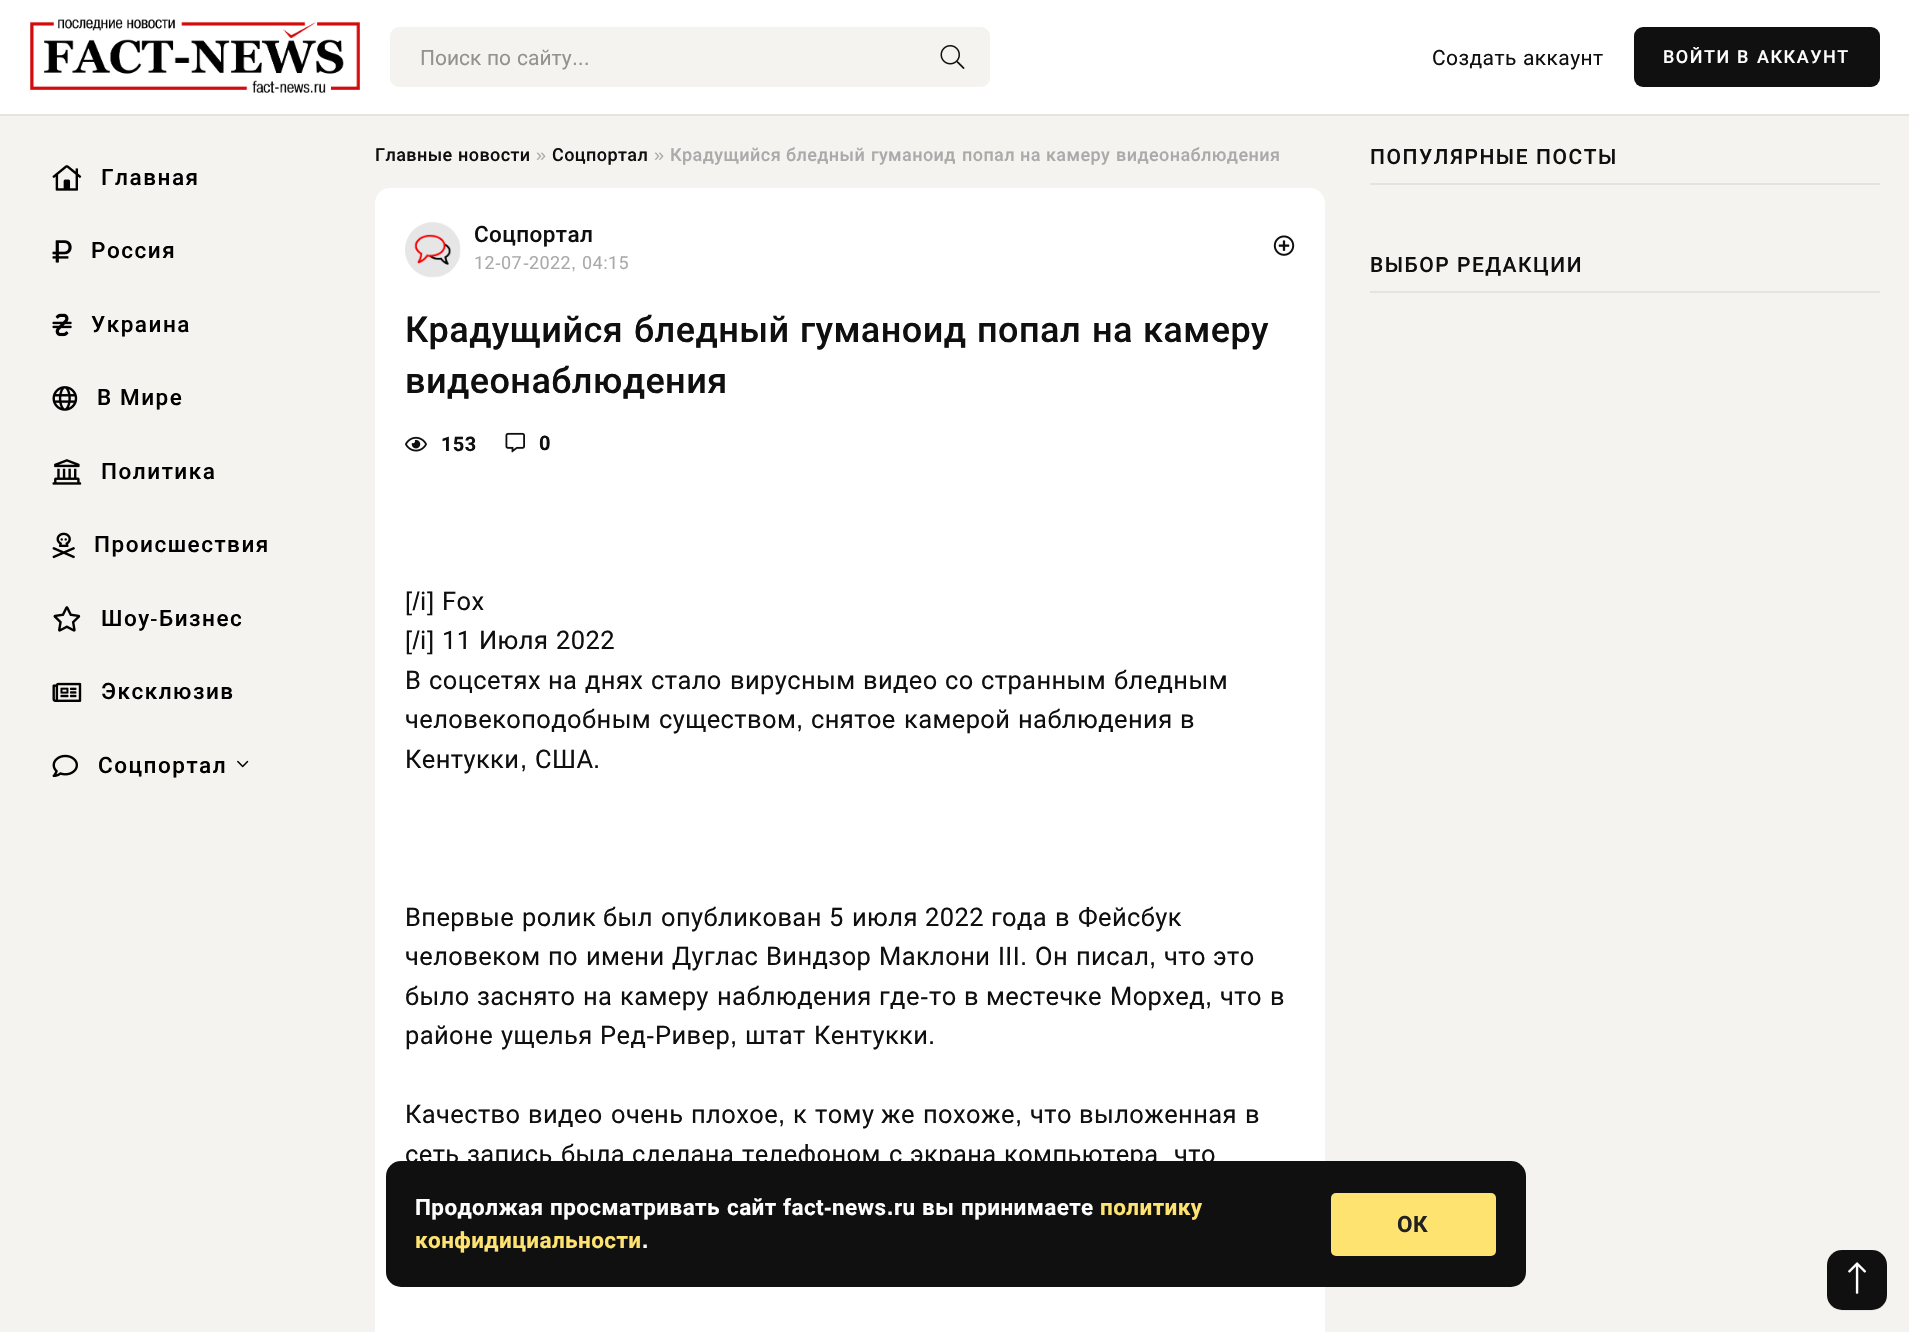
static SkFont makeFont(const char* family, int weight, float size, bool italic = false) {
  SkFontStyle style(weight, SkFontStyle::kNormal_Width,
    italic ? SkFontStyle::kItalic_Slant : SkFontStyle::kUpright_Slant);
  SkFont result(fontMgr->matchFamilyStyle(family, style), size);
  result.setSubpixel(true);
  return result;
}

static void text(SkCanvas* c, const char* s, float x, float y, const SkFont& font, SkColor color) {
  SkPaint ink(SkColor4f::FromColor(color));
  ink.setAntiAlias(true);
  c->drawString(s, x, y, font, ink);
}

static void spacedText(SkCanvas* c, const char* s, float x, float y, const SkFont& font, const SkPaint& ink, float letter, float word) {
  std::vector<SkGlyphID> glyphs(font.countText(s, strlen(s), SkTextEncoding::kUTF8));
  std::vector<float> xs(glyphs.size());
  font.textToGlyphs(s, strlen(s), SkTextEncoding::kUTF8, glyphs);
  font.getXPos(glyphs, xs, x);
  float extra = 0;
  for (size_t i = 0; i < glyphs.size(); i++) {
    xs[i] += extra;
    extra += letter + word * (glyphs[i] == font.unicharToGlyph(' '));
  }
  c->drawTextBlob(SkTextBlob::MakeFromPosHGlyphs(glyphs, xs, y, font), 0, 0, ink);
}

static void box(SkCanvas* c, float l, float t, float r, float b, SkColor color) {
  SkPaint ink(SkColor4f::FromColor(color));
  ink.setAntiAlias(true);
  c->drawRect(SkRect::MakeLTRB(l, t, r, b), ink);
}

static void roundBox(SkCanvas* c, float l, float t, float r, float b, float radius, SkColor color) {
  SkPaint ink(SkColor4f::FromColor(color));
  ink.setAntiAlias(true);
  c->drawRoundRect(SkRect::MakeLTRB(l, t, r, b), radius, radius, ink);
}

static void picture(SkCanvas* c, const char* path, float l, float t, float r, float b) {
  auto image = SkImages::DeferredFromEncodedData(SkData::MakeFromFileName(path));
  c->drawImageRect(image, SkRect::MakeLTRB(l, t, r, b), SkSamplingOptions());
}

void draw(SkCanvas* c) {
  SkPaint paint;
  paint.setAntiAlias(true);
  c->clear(0xfff4f3f0);
  paint.setColor(0xffe5e4e1);
  c->drawPath(SkPathBuilder().moveTo(0, 114).lineTo(0, 116).lineTo(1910, 116).lineTo(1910, 2).lineTo(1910, 114).close().detach(), paint);
  box(c, 0, 0, 1909, 114, 0xffffffff);
  picture(c, "img_01.png", 30, 19, 360, 93);
  roundBox(c, 390, 27, 990, 87, 9, 0xfff4f3f0);
  SkFont face1 = makeFont("Roboto", 400, 21);
  text(c, "Поиск", 420, 65, face1, 0xff929290);
  text(c, "по", 487, 65, face1, 0xff929290);
  text(c, "сайту", 517, 65, face1, 0xff929290);
  SkFont face2 = makeFont("Liberation Sans", 400, 21);
  text(c, "...", 572, 65, face2, 0xff929290);
  picture(c, "img_02.png", 940, 45, 965, 69);
  paint.setColor(0xff0f0f10);
  spacedText(c, "Создать", 1432, 65, face1, paint, 0.4f, 0);
  spacedText(c, "аккаунт", 1523, 65, face1, paint, 0.4f, 0);
  roundBox(c, 1634, 27, 1880, 87, 9, 0xff101010);
  SkFont face3 = makeFont("Roboto", 500, 18);
  paint.setColor(0xffffffff);
  spacedText(c, "ВОЙТИ", 1663, 63, face3, paint, 1.5f, 0);
  spacedText(c, "В", 1737, 63, face3, paint, 1.5f, 0);
  spacedText(c, "АККАУНТ", 1757, 63, face3, paint, 1.5f, 0);
  picture(c, "img_03.png", 52, 165, 82, 191);
  SkFont face4 = makeFont("Roboto", 500, 22.5f);
  paint.setColor(0xff000000);
  spacedText(c, "Главная", 101, 185, face4, paint, 1.5f, 0);
  picture(c, "img_04.png", 52, 240, 72, 263);
  spacedText(c, "Россия", 91, 258, face4, paint, 1.5f, 0);
  picture(c, "img_05.png", 52, 313, 72, 337);
  spacedText(c, "Украина", 91, 332, face4, paint, 1.5f, 0);
  picture(c, "img_06.png", 52, 386, 78, 411);
  spacedText(c, "В", 97, 405, face4, paint, 1.5f, 0);
  spacedText(c, "Мире", 120, 405, face4, paint, 1.5f, 0);
  picture(c, "img_07.png", 52, 459, 82, 485);
  spacedText(c, "Политика", 101, 479, face4, paint, 1.5f, 0);
  picture(c, "img_08.png", 52, 532, 75, 559);
  spacedText(c, "Происшествия", 94, 552, face4, paint, 1.5f, 0);
  picture(c, "img_09.png", 53, 606, 81, 632);
  spacedText(c, "Шоу", 101, 626, face4, paint, 1.5f, 0);
  SkFont face5 = makeFont("Liberation Sans", 400, 22.5f);
  spacedText(c, "-", 150, 626, face5, paint, 1.5f, 0);
  spacedText(c, "Бизнес", 159, 626, face4, paint, 1.5f, 0);
  picture(c, "img_10.png", 52, 682, 82, 702);
  spacedText(c, "Эксклюзив", 101, 699, face4, paint, 1.5f, 0);
  picture(c, "img_11.png", 52, 754, 78, 778);
  spacedText(c, "Соцпортал", 98, 773, face4, paint, 1.5f, 0);
  picture(c, "img_12.png", 237, 760, 249, 768);
  paint.setColor(0xff0f0f10);
  spacedText(c, "Главные", 375, 161, face3, paint, 0.4f, 0);
  spacedText(c, "новости", 458, 161, face3, paint, 0.4f, 0);
  SkFont face6 = makeFont("Liberation Sans", 400, 18);
  paint.setColor(0xffaaaaaa);
  spacedText(c, "»", 536, 161, face6, paint, 0.4f, 0);
  paint.setColor(0xff0f0f10);
  spacedText(c, "Соцпортал", 552, 161, face3, paint, 0.4f, 0);
  paint.setColor(0xffaaaaaa);
  spacedText(c, "»", 654, 161, face6, paint, 0.4f, 0);
  spacedText(c, "Крадущийся", 670, 161, face3, paint, 0.4f, 0);
  spacedText(c, "бледный", 786, 161, face3, paint, 0.4f, 0);
  spacedText(c, "гуманоид", 871, 161, face3, paint, 0.4f, 0);
  spacedText(c, "попал", 962, 161, face3, paint, 0.4f, 0);
  spacedText(c, "на", 1020, 161, face3, paint, 0.4f, 0);
  spacedText(c, "камеру", 1046, 161, face3, paint, 0.4f, 0);
  spacedText(c, "видеонаблюдения", 1116, 161, face3, paint, 0.4f, 0);
  roundBox(c, 375, 188, 1325, 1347, 15, 0xffffffff);
  picture(c, "img_13.png", 405, 222, 461, 278);
  paint.setColor(0xff0f0f10);
  spacedText(c, "Соцпортал", 474, 242, face4, paint, 0.4f, 0);
  SkFont face7 = makeFont("Roboto", 400, 18);
  paint.setColor(0xffaaaaaa);
  spacedText(c, "12", 474, 269, face7, paint, 0.4f, 0);
  spacedText(c, "-", 495, 269, face6, paint, 0.4f, 0);
  spacedText(c, "07", 501, 269, face7, paint, 0.4f, 0);
  spacedText(c, "-", 523, 269, face6, paint, 0.4f, 0);
  spacedText(c, "2022", 529, 269, face7, paint, 0.4f, 0);
  spacedText(c, "04", 582, 269, face7, paint, 0.4f, 0);
  spacedText(c, ":", 603, 269, face6, paint, 0.4f, 0);
  spacedText(c, "15", 608, 269, face7, paint, 0.4f, 0);
  spacedText(c, ",", 571, 269, face6, paint, 0.4f, 0);
  picture(c, "img_14.png", 1273, 235, 1295, 256);
  SkFont face8 = makeFont("Roboto", 500, 36);
  paint.setColor(0xff0f0f10);
  spacedText(c, "Крадущийся", 405, 342, face8, paint, 0.4f, 0);
  spacedText(c, "бледный", 634, 342, face8, paint, 0.4f, 0);
  spacedText(c, "гуманоид", 800, 342, face8, paint, 0.4f, 0);
  spacedText(c, "попал", 977, 342, face8, paint, 0.4f, 0);
  spacedText(c, "на", 1092, 342, face8, paint, 0.4f, 0);
  spacedText(c, "камеру", 1143, 342, face8, paint, 0.4f, 0);
  spacedText(c, "видеонаблюдения", 405, 393, face8, paint, 0.4f, 0);
  picture(c, "img_15.png", 405, 436, 427, 452);
  SkFont face9 = makeFont("Roboto", 700, 20);
  spacedText(c, "153", 441, 451, face9, paint, 0.4f, 0);
  picture(c, "img_16.png", 505, 432, 525, 453);
  spacedText(c, "0", 539, 450, face9, paint, 0.4f, 0);
  SkFont face10 = makeFont("Liberation Sans", 400, 25.5f);
  spacedText(c, "[/", 405, 610, face10, paint, 0.4f, 0);
  SkFont face11 = makeFont("Roboto", 400, 25.5f);
  spacedText(c, "i", 420, 610, face11, paint, 0.4f, 0);
  spacedText(c, "]", 427, 610, face10, paint, 0.4f, 0);
  spacedText(c, "Fox", 442, 610, face11, paint, 0.4f, 0);
  spacedText(c, "[/", 405, 649, face10, paint, 0.4f, 0);
  spacedText(c, "i", 420, 649, face11, paint, 0.4f, 0);
  spacedText(c, "]", 427, 649, face10, paint, 0.4f, 0);
  spacedText(c, "11", 442, 649, face11, paint, 0.4f, 0);
  spacedText(c, "Июля", 479, 649, face11, paint, 0.4f, 0);
  spacedText(c, "2022", 556, 649, face11, paint, 0.4f, 0);
  spacedText(c, "В", 405, 689, face11, paint, 0.4f, 0);
  spacedText(c, "соцсетях", 429, 689, face11, paint, 0.4f, 0);
  spacedText(c, "на", 548, 689, face11, paint, 0.4f, 0);
  spacedText(c, "днях", 585, 689, face11, paint, 0.4f, 0);
  spacedText(c, "стало", 651, 689, face11, paint, 0.4f, 0);
  spacedText(c, "вирусным", 730, 689, face11, paint, 0.4f, 0);
  spacedText(c, "видео", 863, 689, face11, paint, 0.4f, 0);
  spacedText(c, "со", 945, 689, face11, paint, 0.4f, 0);
  spacedText(c, "странным", 981, 689, face11, paint, 0.4f, 0);
  spacedText(c, "бледным", 1114, 689, face11, paint, 0.4f, 0);
  spacedText(c, "человекоподобным", 405, 728, face11, paint, 0.4f, 0);
  spacedText(c, "существом", 659, 728, face11, paint, 0.4f, 0);
  spacedText(c, ",", 796, 728, face10, paint, 0.4f, 0);
  spacedText(c, "снятое", 811, 728, face11, paint, 0.4f, 0);
  spacedText(c, "камерой", 904, 728, face11, paint, 0.4f, 0);
  spacedText(c, "наблюдения", 1018, 728, face11, paint, 0.4f, 0);
  spacedText(c, "в", 1180, 728, face11, paint, 0.4f, 0);
  spacedText(c, "Кентукки", 405, 768, face11, paint, 0.4f, 0);
  spacedText(c, ",", 520, 768, face10, paint, 0.4f, 0);
  spacedText(c, "США", 535, 768, face11, paint, 0.4f, 0);
  spacedText(c, ".", 593, 768, face10, paint, 0.4f, 0);
  spacedText(c, "Впервые", 405, 926, face11, paint, 0.4f, 0);
  spacedText(c, "ролик", 522, 926, face11, paint, 0.4f, 0);
  spacedText(c, "был", 603, 926, face11, paint, 0.4f, 0);
  spacedText(c, "опубликован", 661, 926, face11, paint, 0.4f, 0);
  spacedText(c, "5", 829, 926, face11, paint, 0.4f, 0);
  spacedText(c, "июля", 852, 926, face11, paint, 0.4f, 0);
  spacedText(c, "2022", 925, 926, face11, paint, 0.4f, 0);
  spacedText(c, "года", 991, 926, face11, paint, 0.4f, 0);
  spacedText(c, "в", 1055, 926, face11, paint, 0.4f, 0);
  spacedText(c, "Фейсбук", 1078, 926, face11, paint, 0.4f, 0);
  spacedText(c, "человеком", 405, 965, face11, paint, 0.4f, 0);
  spacedText(c, "по", 548, 965, face11, paint, 0.4f, 0);
  spacedText(c, "имени", 586, 965, face11, paint, 0.4f, 0);
  spacedText(c, "Дуглас", 672, 965, face11, paint, 0.4f, 0);
  spacedText(c, "Виндзор", 766, 965, face11, paint, 0.4f, 0);
  spacedText(c, "Маклони", 879, 965, face11, paint, 0.4f, 0);
  spacedText(c, "III", 998, 965, face11, paint, 0.4f, 0);
  spacedText(c, ".", 1020, 965, face10, paint, 0.4f, 0);
  spacedText(c, "Он", 1035, 965, face11, paint, 0.4f, 0);
  spacedText(c, "писал", 1076, 965, face11, paint, 0.4f, 0);
  spacedText(c, ",", 1149, 965, face10, paint, 0.4f, 0);
  spacedText(c, "что", 1164, 965, face11, paint, 0.4f, 0);
  spacedText(c, "это", 1213, 965, face11, paint, 0.4f, 0);
  spacedText(c, "было", 405, 1005, face11, paint, 0.4f, 0);
  spacedText(c, "заснято", 477, 1005, face11, paint, 0.4f, 0);
  spacedText(c, "на", 583, 1005, face11, paint, 0.4f, 0);
  spacedText(c, "камеру", 620, 1005, face11, paint, 0.4f, 0);
  spacedText(c, "наблюдения", 717, 1005, face11, paint, 0.4f, 0);
  spacedText(c, "где", 879, 1005, face11, paint, 0.4f, 0);
  spacedText(c, "-", 920, 1005, face10, paint, 0.4f, 0);
  spacedText(c, "то", 929, 1005, face11, paint, 0.4f, 0);
  spacedText(c, "в", 964, 1005, face11, paint, 0.4f, 0);
  spacedText(c, "местечке", 986, 1005, face11, paint, 0.4f, 0);
  spacedText(c, "Морхед", 1110, 1005, face11, paint, 0.4f, 0);
  spacedText(c, "что", 1220, 1005, face11, paint, 0.4f, 0);
  spacedText(c, "в", 1270, 1005, face11, paint, 0.4f, 0);
  spacedText(c, ",", 1205, 1005, face10, paint, 0.4f, 0);
  spacedText(c, "районе", 405, 1044, face11, paint, 0.4f, 0);
  spacedText(c, "ущелья", 501, 1044, face11, paint, 0.4f, 0);
  spacedText(c, "Ред", 600, 1044, face11, paint, 0.4f, 0);
  spacedText(c, "-", 646, 1044, face10, paint, 0.4f, 0);
  spacedText(c, "Ривер", 655, 1044, face11, paint, 0.4f, 0);
  spacedText(c, "штат", 745, 1044, face11, paint, 0.4f, 0);
  spacedText(c, "Кентукки", 814, 1044, face11, paint, 0.4f, 0);
  spacedText(c, ",", 730, 1044, face10, paint, 0.4f, 0);
  spacedText(c, ".", 928, 1044, face10, paint, 0.4f, 0);
  spacedText(c, "Качество", 405, 1123, face11, paint, 0.4f, 0);
  spacedText(c, "видео", 528, 1123, face11, paint, 0.4f, 0);
  spacedText(c, "очень", 611, 1123, face11, paint, 0.4f, 0);
  spacedText(c, "плохое", 691, 1123, face11, paint, 0.4f, 0);
  spacedText(c, ",", 778, 1123, face10, paint, 0.4f, 0);
  spacedText(c, "к", 793, 1123, face11, paint, 0.4f, 0);
  spacedText(c, "тому", 815, 1123, face11, paint, 0.4f, 0);
  spacedText(c, "же", 881, 1123, face11, paint, 0.4f, 0);
  spacedText(c, "похоже", 923, 1123, face11, paint, 0.4f, 0);
  spacedText(c, ",", 1015, 1123, face10, paint, 0.4f, 0);
  spacedText(c, "что", 1030, 1123, face11, paint, 0.4f, 0);
  spacedText(c, "выложенная", 1079, 1123, face11, paint, 0.4f, 0);
  spacedText(c, "в", 1245, 1123, face11, paint, 0.4f, 0);
  spacedText(c, "сеть", 405, 1163, face11, paint, 0.4f, 0);
  spacedText(c, "запись", 467, 1163, face11, paint, 0.4f, 0);
  spacedText(c, "была", 561, 1163, face11, paint, 0.4f, 0);
  spacedText(c, "сделана", 632, 1163, face11, paint, 0.4f, 0);
  spacedText(c, "телефоном", 742, 1163, face11, paint, 0.4f, 0);
  spacedText(c, "с", 889, 1163, face11, paint, 0.4f, 0);
  spacedText(c, "экрана", 910, 1163, face11, paint, 0.4f, 0);
  spacedText(c, "компьютера", 1004, 1163, face11, paint, 0.4f, 0);
  spacedText(c, "что", 1174, 1163, face11, paint, 0.4f, 0);
  box(c, 1370, 183, 1880, 185, 0xffe3e3e3);
  SkFont face12 = makeFont("Roboto", 500, 21);
  spacedText(c, "ПОПУЛЯРНЫЕ", 1370, 164, face12, paint, 1.5f, 0);
  spacedText(c, "ПОСТЫ", 1536, 164, face12, paint, 1.5f, 0);
  box(c, 1370, 291, 1880, 293, 0xffe3e3e3);
  spacedText(c, "ВЫБОР", 1370, 272, face12, paint, 1.5f, 0);
  spacedText(c, "РЕДАКЦИИ", 1457, 272, face12, paint, 1.5f, 0);
  roundBox(c, 386, 1161, 1526, 1287, 15, 0xff101010);
  SkFont face13 = makeFont("Roboto", 700, 22.5f);
  paint.setColor(0xffffffff);
  spacedText(c, "Продолжая", 415, 1215, face13, paint, 0.4f, 0);
  spacedText(c, "просматривать", 550, 1215, face13, paint, 0.4f, 0);
  spacedText(c, "сайт", 727, 1215, face13, paint, 0.4f, 0);
  spacedText(c, "fact", 783, 1215, face13, paint, 0.4f, 0);
  SkFont face14 = makeFont("Liberation Sans", 700, 22.5f);
  spacedText(c, "-", 824, 1215, face14, paint, 0.4f, 0);
  spacedText(c, "news", 832, 1215, face13, paint, 0.4f, 0);
  spacedText(c, "ru", 894, 1215, face13, paint, 0.4f, 0);
  spacedText(c, "вы", 922, 1215, face13, paint, 0.4f, 0);
  spacedText(c, "принимаете", 961, 1215, face13, paint, 0.4f, 0);
  paint.setColor(0xffffe371);
  spacedText(c, "политику", 1100, 1215, face13, paint, 0.4f, 0);
  paint.setColor(0xffffffff);
  spacedText(c, ".", 887, 1215, face14, paint, 0.4f, 0);
  paint.setColor(0xffffe371);
  spacedText(c, "конфидициальности", 415, 1248, face13, paint, 0.4f, 0);
  paint.setColor(0xffffffff);
  spacedText(c, ".", 642, 1248, face14, paint, 0.4f, 0);
  roundBox(c, 1331, 1193, 1496, 1256, 5, 0xffffe371);
  paint.setColor(0xff212121);
  spacedText(c, "ОК", 1397, 1232, face13, paint, 0.4f, 0);
  paint.setColor(0xffe5e4e1);
  c->drawPath(SkPathBuilder().moveTo(1827, 1294).cubicTo(1827, 1313, 1843, 1311, 1857, 1311).cubicTo(1871, 1311, 1887, 1313, 1887, 1294).cubicTo(1887, 1303, 1880, 1310, 1872, 1310).lineTo(1842, 1310).cubicTo(1834, 1310, 1827, 1303, 1827, 1294).close().detach(), paint);
  roundBox(c, 1827, 1250, 1887, 1310, 15, 0xff101010);
  picture(c, "img_17.png", 1848, 1262, 1866, 1294);
}
